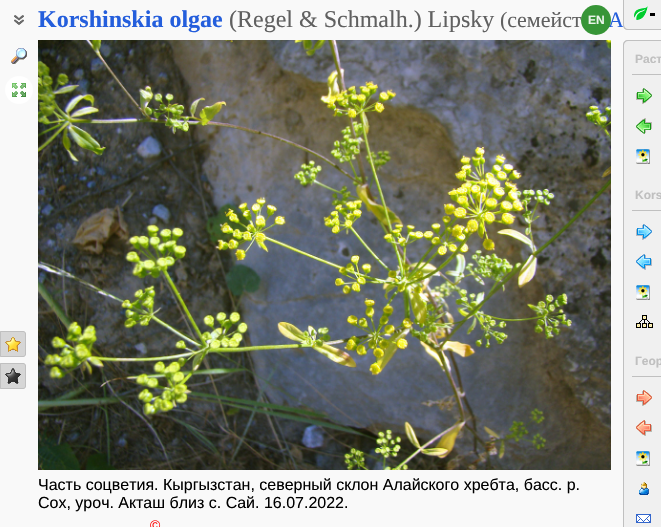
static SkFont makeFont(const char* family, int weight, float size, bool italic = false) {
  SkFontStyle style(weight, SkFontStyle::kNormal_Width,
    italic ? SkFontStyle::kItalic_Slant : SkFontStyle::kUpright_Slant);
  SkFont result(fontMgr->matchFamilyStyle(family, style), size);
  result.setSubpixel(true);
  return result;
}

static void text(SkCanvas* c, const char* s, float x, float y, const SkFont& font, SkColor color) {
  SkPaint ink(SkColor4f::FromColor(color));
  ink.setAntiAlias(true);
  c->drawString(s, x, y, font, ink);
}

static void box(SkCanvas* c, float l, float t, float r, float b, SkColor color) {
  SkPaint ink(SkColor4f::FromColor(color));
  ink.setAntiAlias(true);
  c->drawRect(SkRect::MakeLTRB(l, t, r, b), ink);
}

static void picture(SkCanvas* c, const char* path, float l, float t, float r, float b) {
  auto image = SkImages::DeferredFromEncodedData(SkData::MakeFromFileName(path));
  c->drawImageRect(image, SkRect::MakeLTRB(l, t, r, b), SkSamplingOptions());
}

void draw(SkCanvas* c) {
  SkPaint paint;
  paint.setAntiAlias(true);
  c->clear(0xfff9f9f9);
  picture(c, "img_01.png", 14, 15, 24, 25);
  SkFont face1 = makeFont("Liberation Serif", 700, 24);
  text(c, "Korshinskia olgae", 38, 27, face1, 0xff245edc);
  SkFont face2 = makeFont("Liberation Serif", 400, 24);
  text(c, "(Regel & Schmalh.) Lipsky", 229, 27, face2, 0xff606060);
  SkFont face3 = makeFont("Liberation Serif", 400, 22);
  text(c, "(семейст", 500, 27, face3, 0xff606060);
  text(c, "A", 608, 27, face3, 0xff245edc);
  paint.setColor(0xe6228b22);
  c->drawCircle(596, 20, 15, paint);
  SkFont face4 = makeFont("Liberation Sans", 700, 12);
  text(c, "EN", 588, 24, face4, 0xffebf4eb);
  picture(c, "img_02.png", 11, 48, 27, 64);
  paint.setColor(0xffffffff);
  c->drawCircle(19, 90, 14, paint);
  picture(c, "img_03.png", 12, 83, 26, 97);
  paint.setColor(0xffd6d6d6);
  c->drawPath(SkPathBuilder().moveTo(0, 331).lineTo(23, 331).cubicTo(24.5f, 331, 26, 332.5f, 26, 334).lineTo(26, 354).cubicTo(26, 355.5f, 24.5f, 357, 23, 357).lineTo(0, 357).close().detach(), paint);
  picture(c, "img_04.png", 5, 337, 21, 352);
  paint.setStyle(SkPaint::kStroke_Style);
  paint.setStrokeWidth(1);
  paint.setColor(0xffc0c0c0);
  c->drawPath(SkPathBuilder().moveTo(0.5f, 331.5f).lineTo(23, 331.5f).cubicTo(24.5f, 331.5f, 25.5f, 332.5f, 25.5f, 334).lineTo(25.5f, 354).cubicTo(25.5f, 355.5f, 24.5f, 356.5f, 23, 356.5f).lineTo(0.5f, 356.5f).close().detach(), paint);
  paint.setStyle(SkPaint::kFill_Style);
  paint.setColor(0xffd6d6d6);
  c->drawPath(SkPathBuilder().moveTo(0, 363).lineTo(23, 363).cubicTo(24.5f, 363, 26, 364.5f, 26, 366).lineTo(26, 386).cubicTo(26, 387.5f, 24.5f, 389, 23, 389).lineTo(0, 389).close().detach(), paint);
  picture(c, "img_05.png", 5, 368, 21, 384);
  paint.setStyle(SkPaint::kStroke_Style);
  paint.setColor(0xffc0c0c0);
  c->drawPath(SkPathBuilder().moveTo(0.5f, 363.5f).lineTo(23, 363.5f).cubicTo(24.5f, 363.5f, 25.5f, 364.5f, 25.5f, 366).lineTo(25.5f, 386).cubicTo(25.5f, 387.5f, 24.5f, 388.5f, 23, 388.5f).lineTo(0.5f, 388.5f).close().detach(), paint);
  paint.setStyle(SkPaint::kFill_Style);
  paint.setColor(0xfff0f0f0);
  c->drawPath(SkPathBuilder().moveTo(623, 0).lineTo(661, 0).lineTo(661, 30).lineTo(628, 30).cubicTo(625, 30, 623, 28, 623, 25).close().detach(), paint);
  picture(c, "img_06.png", 634, 6, 648, 20);
  paint.setColor(0xffc0c0c0);
  c->drawPath(SkPathBuilder(SkPathFillType::kEvenOdd).moveTo(623, 0).lineTo(661, 0).lineTo(661, 30).lineTo(628, 30).cubicTo(625, 30, 623, 28, 623, 25).close().moveTo(624, 0).lineTo(661, 0).lineTo(661, 29).lineTo(628, 29).cubicTo(626, 29, 624, 27, 624, 25).close().detach(), paint);
  box(c, 650, 13, 655, 16, 0xff000000);
  paint.setColor(0xfff0f0f0);
  c->drawPath(SkPathBuilder().moveTo(628, 40).lineTo(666, 40).lineTo(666, 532).lineTo(628, 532).cubicTo(625, 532, 623, 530, 623, 527).lineTo(623, 45).cubicTo(623, 42, 625, 40, 628, 40).close().detach(), paint);
  paint.setColor(0xffc0c0c0);
  c->drawPath(SkPathBuilder(SkPathFillType::kEvenOdd).moveTo(628, 40).lineTo(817, 40).lineTo(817, 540).lineTo(628, 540).cubicTo(625, 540, 623, 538, 623, 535).lineTo(623, 45).cubicTo(623, 42, 625, 40, 628, 40).close().moveTo(628, 41).lineTo(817, 41).lineTo(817, 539).lineTo(628, 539).cubicTo(626, 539, 624, 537, 624, 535).lineTo(624, 45).cubicTo(624, 43, 626, 41, 628, 41).close().detach(), paint);
  box(c, 632, 74, 661, 75, 0xffc0c0c0);
  text(c, "Раст", 635, 63, face4, 0xffc0c0c0);
  picture(c, "img_07.png", 636, 88, 652, 104);
  picture(c, "img_08.png", 636, 118, 652, 134);
  picture(c, "img_09.png", 636, 149, 650, 164);
  box(c, 632, 210, 661, 211, 0xffc0c0c0);
  text(c, "Kors", 635, 199, face4, 0xffc0c0c0);
  picture(c, "img_10.png", 636, 224, 652, 240);
  picture(c, "img_11.png", 636, 254, 652, 270);
  picture(c, "img_09.png", 636, 285, 650, 300);
  picture(c, "img_12.png", 636, 315, 653, 328);
  box(c, 632, 376, 661, 377, 0xffc0c0c0);
  text(c, "Геор", 635, 365, face4, 0xffc0c0c0);
  picture(c, "img_13.png", 636, 390, 652, 406);
  picture(c, "img_14.png", 636, 420, 652, 436);
  picture(c, "img_09.png", 636, 451, 650, 466);
  picture(c, "img_15.png", 639, 482, 649, 495);
  picture(c, "img_16.png", 636, 514, 651, 523);
  picture(c, "img_17.png", 38, 40, 611, 470);
  SkFont face5 = makeFont("Liberation Sans", 400, 16);
  text(c, "Часть соцветия. Кыргызстан, северный склон Алайского хребта, басс. р.", 38, 490, face5, 0xff000000);
  text(c, "Сох, уроч. Акташ близ с. Сай. 16.07.2022.", 38, 508, face5, 0xff000000);
  SkFont face6 = makeFont("Liberation Sans", 400, 14);
  text(c, "©", 150, 530, face6, 0xffff0000);
}
